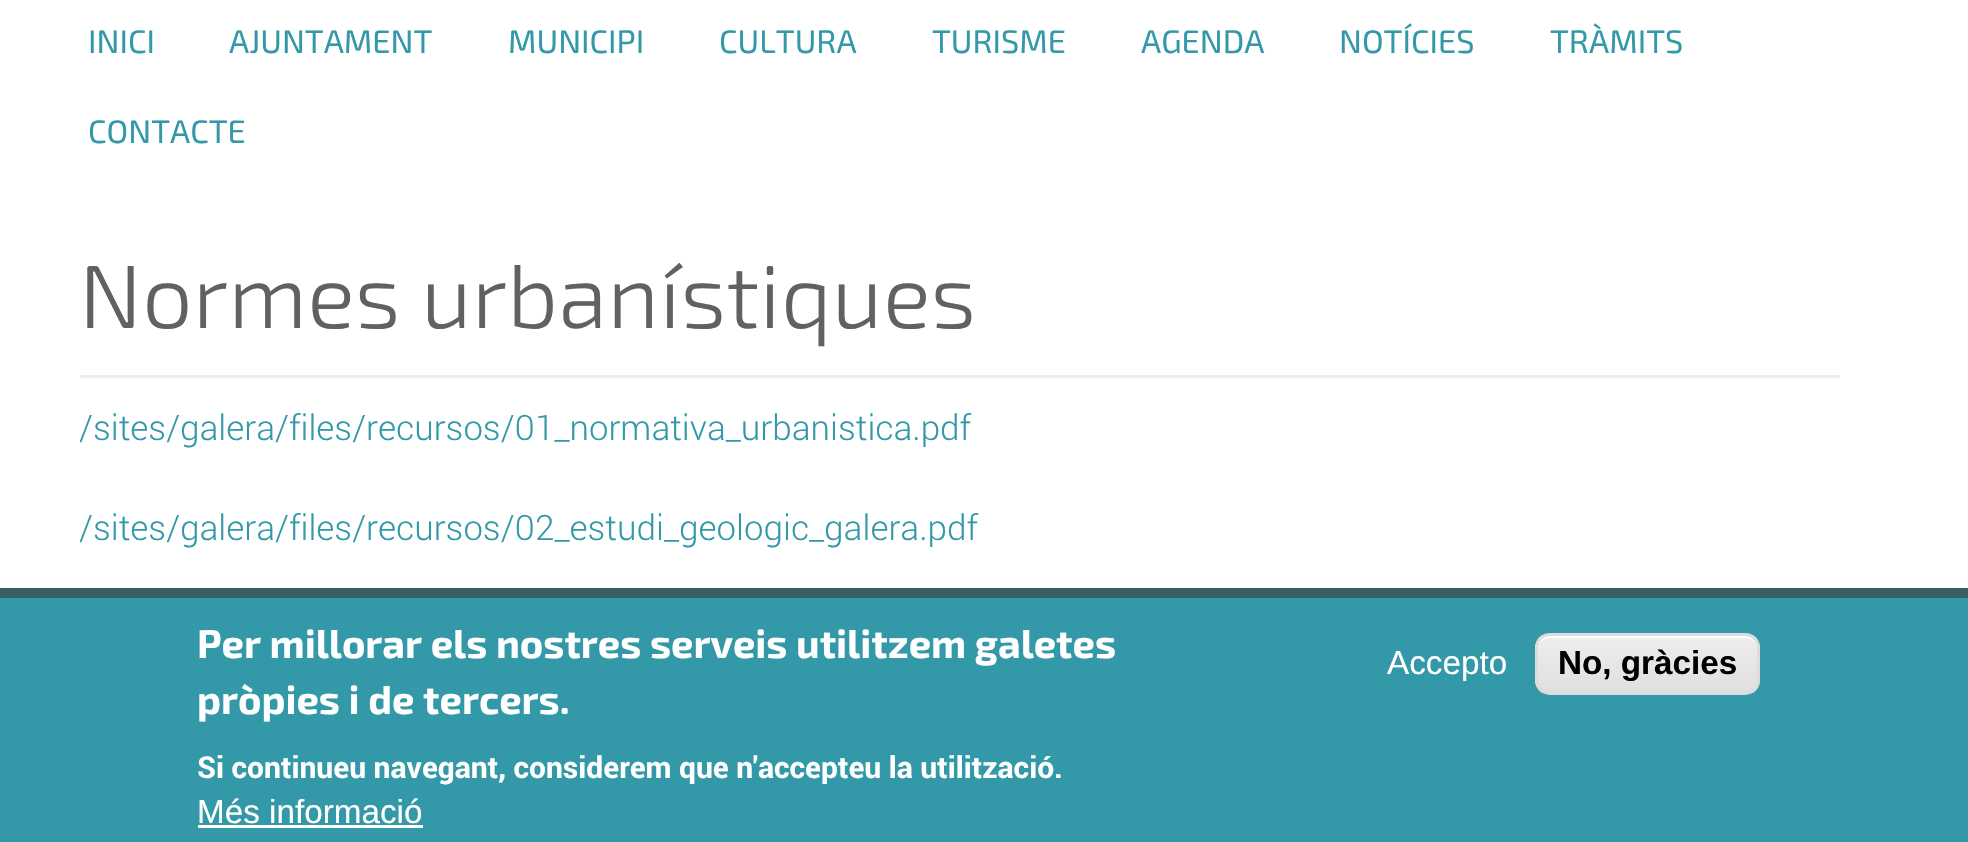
static SkFont makeFont(const char* family, int weight, float size, bool italic = false) {
  SkFontStyle style(weight, SkFontStyle::kNormal_Width,
    italic ? SkFontStyle::kItalic_Slant : SkFontStyle::kUpright_Slant);
  SkFont result(fontMgr->matchFamilyStyle(family, style), size);
  result.setSubpixel(true);
  return result;
}

static void text(SkCanvas* c, const char* s, float x, float y, const SkFont& font, SkColor color) {
  SkPaint ink(SkColor4f::FromColor(color));
  ink.setAntiAlias(true);
  c->drawString(s, x, y, font, ink);
}

static void box(SkCanvas* c, float l, float t, float r, float b, SkColor color) {
  SkPaint ink(SkColor4f::FromColor(color));
  ink.setAntiAlias(true);
  c->drawRect(SkRect::MakeLTRB(l, t, r, b), ink);
}

void draw(SkCanvas* c) {
  SkPaint paint;
  paint.setAntiAlias(true);
  c->clear(0xffffffff);
  SkFont face1 = makeFont("Exo 2", 400, 32.5f);
  text(c, "INICI", 88, 53, face1, 0xff3399a9);
  text(c, "AJUNTAMENT", 229, 53, face1, 0xff3399a9);
  text(c, "MUNICIPI", 508, 53, face1, 0xff3399a9);
  text(c, "CULTURA", 719, 53, face1, 0xff3399a9);
  text(c, "TURISME", 932, 53, face1, 0xff3399a9);
  text(c, "AGENDA", 1141, 53, face1, 0xff3399a9);
  text(c, "NOTÍCIES", 1339, 53, face1, 0xff3399a9);
  text(c, "TRÀMITS", 1550, 53, face1, 0xff3399a9);
  text(c, "CONTACTE", 88, 143, face1, 0xff3399a9);
  box(c, 80, 375, 1840, 378, 0xffeeeeee);
  SkFont face2 = makeFont("Exo 2", 300, 90);
  text(c, "Normes urbanístiques", 79, 328, face2, 0xff616161);
  c->save();
  c->clipRect(SkRect::MakeLTRB(80, 193, 1890, 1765));
  SkFont face3 = makeFont("Roboto", 300, 35);
  text(c, "/sites/galera/files/recursos/01_normativa_urbanistica.pdf", 79, 440, face3, 0xff3399a9);
  text(c, "/sites/galera/files/recursos/02_estudi_geologic_galera.pdf", 79, 540, face3, 0xff3399a9);
  c->restore();
  box(c, 0, 598, 1968, 842, 0xff3399a9);
  box(c, 0, 588, 1968, 598, 0xff385d62);
  SkFont face4 = makeFont("Exo 2", 700, 40);
  text(c, "Per millorar els nostres serveis utilitzem galetes", 197, 658, face4, 0xffffffff);
  text(c, "pròpies i de tercers.", 197, 714, face4, 0xffffffff);
  SkFont face5 = makeFont("Roboto", 700, 30);
  text(c, "Si continueu navegant, considerem que n'accepteu la utilització.", 197, 778, face5, 0xffffffff);
  SkFont face6 = makeFont("Liberation Sans", 400, 33.25f);
  text(c, "Més informació", 197, 823, face6, 0xffffffff);
  box(c, 198, 825, 423, 828, 0xffffffff);
  text(c, "Accepto", 1387, 674, face6, 0xffffffff);
  c->save();
  c->clipPath(SkPathBuilder().moveTo(1550, 633).lineTo(1745, 633).cubicTo(1753.5f, 633, 1760, 639.5f, 1760, 648).lineTo(1760, 680).cubicTo(1760, 688.5f, 1753.5f, 695, 1745, 695).lineTo(1550, 695).cubicTo(1541.5f, 695, 1535, 688.5f, 1535, 680).lineTo(1535, 648).cubicTo(1535, 639.5f, 1541.5f, 633, 1550, 633).close().detach(), true);
  {
    const SkColor colors[] = {0xffededed, 0xffdfdfdf};
    const float stops[] = {0.05f, 1};
    const SkPoint ends[] = {{1648, 635}, {1648, 693}};
    paint.setShader(SkGradientShader::MakeLinear(ends, colors, stops, 2, SkTileMode::kClamp));
    paint.setAlpha(255);
  }
  c->drawRect(SkRect::MakeLTRB(1535, 635, 1760, 693), paint);
  c->restore();
  paint.setShader(nullptr);
  paint.setColor(0xffffffff);
  c->drawPath(SkPathBuilder().moveTo(1550, 638).lineTo(1745, 638).cubicTo(1752, 638, 1758, 643, 1758, 650).lineTo(1758, 648).cubicTo(1758, 641, 1752, 635, 1745, 635).lineTo(1551, 635).cubicTo(1544, 635, 1538, 641, 1538, 648).lineTo(1538, 650).cubicTo(1538, 643, 1543, 638, 1550, 638).close().detach(), paint);
  paint.setStyle(SkPaint::kStroke_Style);
  paint.setStrokeWidth(3);
  paint.setColor(0xffdcdcdc);
  c->drawRoundRect(SkRect::MakeLTRB(1536.5f, 634.5f, 1758.5f, 693.5f), 13.5f, 13.5f, paint);
  SkFont face7 = makeFont("Liberation Sans", 700, 33.25f);
  text(c, "No, gràcies", 1558, 674, face7, 0xff000000);
}
